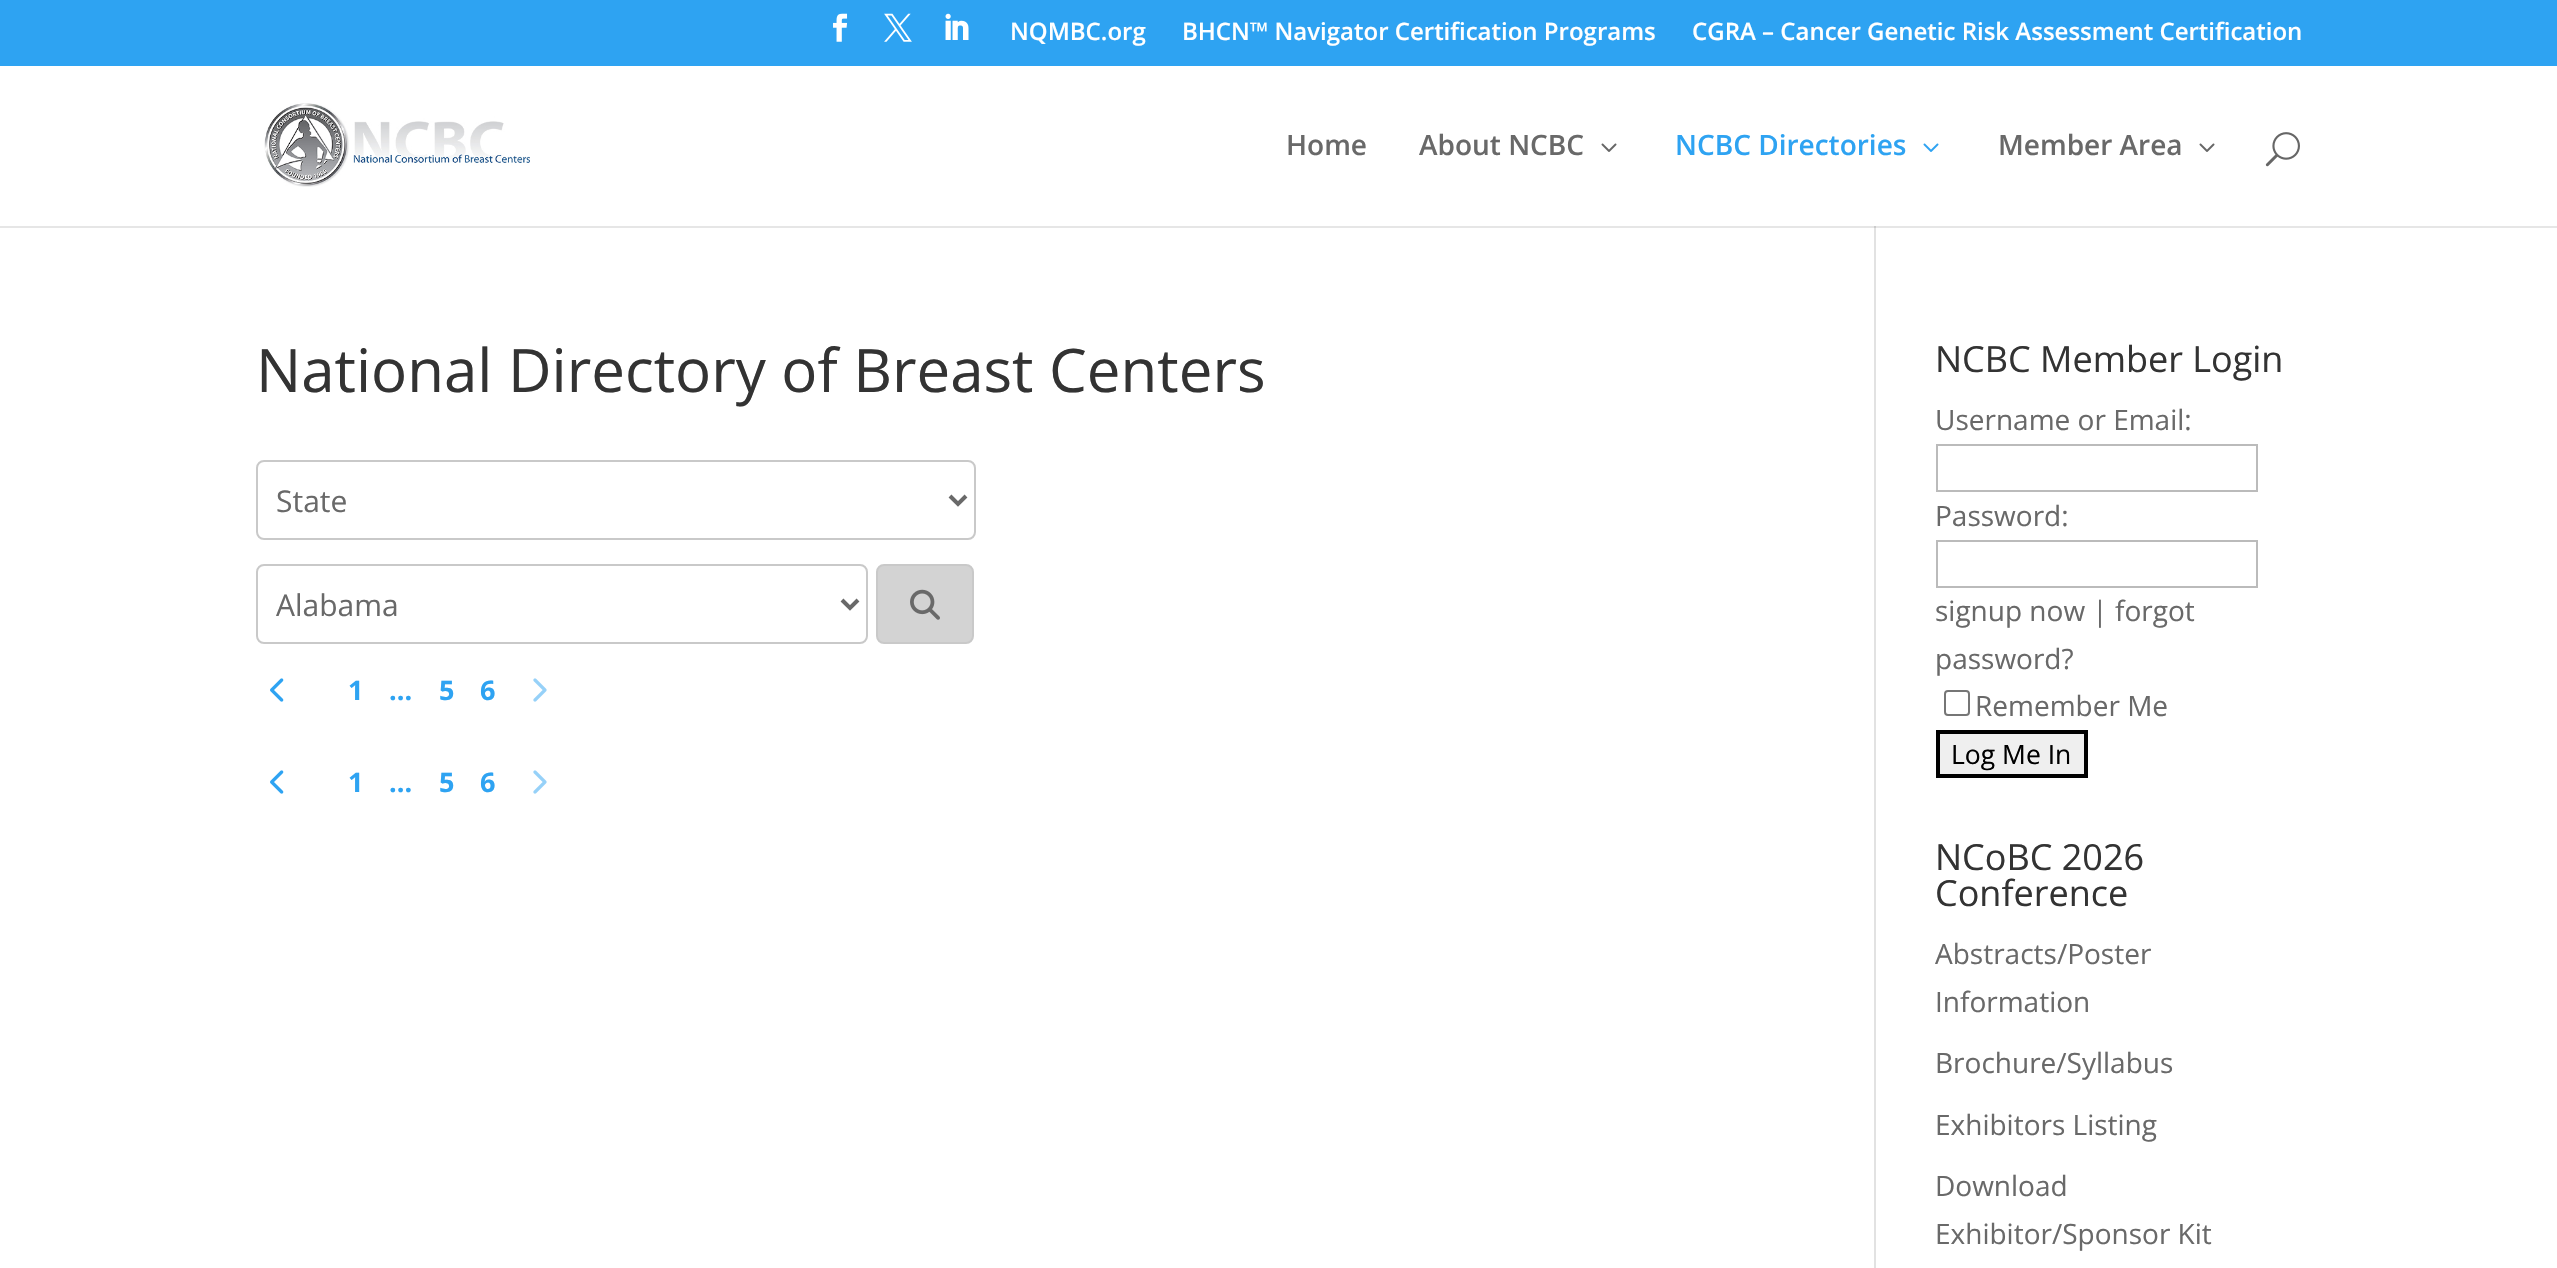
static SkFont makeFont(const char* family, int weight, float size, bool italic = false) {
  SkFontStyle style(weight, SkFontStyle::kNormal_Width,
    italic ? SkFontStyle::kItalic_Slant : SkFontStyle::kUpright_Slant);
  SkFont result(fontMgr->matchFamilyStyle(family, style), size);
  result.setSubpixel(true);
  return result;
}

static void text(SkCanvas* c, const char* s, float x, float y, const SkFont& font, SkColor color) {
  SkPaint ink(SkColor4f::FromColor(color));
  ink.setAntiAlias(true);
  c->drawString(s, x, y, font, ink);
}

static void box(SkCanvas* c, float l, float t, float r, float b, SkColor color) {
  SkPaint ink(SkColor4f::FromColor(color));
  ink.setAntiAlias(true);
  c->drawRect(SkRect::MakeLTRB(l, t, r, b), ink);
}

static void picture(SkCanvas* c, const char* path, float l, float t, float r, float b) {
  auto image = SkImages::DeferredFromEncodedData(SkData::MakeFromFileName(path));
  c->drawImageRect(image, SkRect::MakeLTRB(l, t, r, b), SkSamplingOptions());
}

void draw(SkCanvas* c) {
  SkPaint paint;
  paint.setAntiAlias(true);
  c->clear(0xffffffff);
  box(c, 0, 226, 2557, 228, 0xffe6e6e6);
  box(c, 0, 0, 2557, 66, 0xff2ea3f2);
  picture(c, "img_01.png", 833, 13, 848, 42);
  picture(c, "img_02.png", 884, 13, 912, 42);
  picture(c, "img_03.png", 945, 13, 969, 40);
  SkFont face1 = makeFont("Open Sans", 600, 24);
  text(c, "NQMBC.org", 1010, 40, face1, 0xffffffff);
  text(c, "BHCN™ Navigator Certification Programs", 1182, 40, face1, 0xffffffff);
  text(c, "CGRA – Cancer Genetic Risk Assessment Certification", 1692, 40, face1, 0xffffffff);
  box(c, 1874, 224, 1876, 1268, 0xffe2e2e2);
  box(c, 1874, 224, 1876, 226, 0xffffffff);
  picture(c, "img_04.png", 264, 103, 530, 187);
  SkFont face2 = makeFont("Open Sans", 600, 28);
  text(c, "Home", 1286, 155, face2, 0xff696969);
  text(c, "About NCBC", 1419, 155, face2, 0xff696969);
  picture(c, "img_05.png", 1601, 143, 1617, 152);
  text(c, "NCBC Directories", 1675, 155, face2, 0xff2ea3f2);
  picture(c, "img_06.png", 1923, 143, 1939, 152);
  text(c, "Member Area", 1998, 155, face2, 0xff696969);
  picture(c, "img_05.png", 2199, 143, 2215, 152);
  picture(c, "img_07.png", 2265, 132, 2300, 167);
  box(c, 1874, 226, 1876, 228, 0xffcbcbcb);
  SkFont face3 = makeFont("Open Sans", 400, 60);
  text(c, "National Directory of Breast Centers", 256, 392, face3, 0xff333333);
  paint.setStyle(SkPaint::kStroke_Style);
  paint.setStrokeWidth(2);
  paint.setColor(0xffc9c9c9);
  c->drawRoundRect(SkRect::MakeLTRB(257, 461, 975, 539), 7, 7, paint);
  paint.setStrokeWidth(4);
  paint.setColor(0xff696969);
  c->drawPath(SkPathBuilder().moveTo(950, 496).lineTo(958, 504).lineTo(966, 496).detach(), paint);
  SkFont face4 = makeFont("Open Sans", 400, 30);
  text(c, "State", 276, 512, face4, 0xff696969);
  paint.setStrokeWidth(2);
  paint.setColor(0xffc9c9c9);
  c->drawRoundRect(SkRect::MakeLTRB(257, 565, 867, 643), 7, 7, paint);
  paint.setStrokeWidth(4);
  paint.setColor(0xff696969);
  c->drawPath(SkPathBuilder().moveTo(842, 600).lineTo(850, 608).lineTo(858, 600).detach(), paint);
  text(c, "Alabama", 276, 616, face4, 0xff696969);
  paint.setStyle(SkPaint::kFill_Style);
  paint.setColor(0xffd3d3d3);
  c->drawRoundRect(SkRect::MakeLTRB(877, 565, 973, 643), 7, 7, paint);
  paint.setStyle(SkPaint::kStroke_Style);
  paint.setStrokeWidth(2);
  paint.setColor(0xffc9c9c9);
  c->drawRoundRect(SkRect::MakeLTRB(877, 565, 973, 643), 7, 7, paint);
  picture(c, "img_08.png", 910, 589, 940, 620);
  picture(c, "img_09.png", 270, 678, 284, 702);
  SkFont face5 = makeFont("Open Sans", 700, 27);
  text(c, "1", 348, 700, face5, 0xff2ea3f2);
  text(c, "...", 389, 700, face5, 0xff2ea3f2);
  text(c, "5", 439, 700, face5, 0xff2ea3f2);
  text(c, "6", 480, 700, face5, 0xff2ea3f2);
  picture(c, "img_10.png", 533, 678, 547, 702);
  picture(c, "img_09.png", 270, 770, 284, 794);
  text(c, "1", 348, 792, face5, 0xff2ea3f2);
  text(c, "...", 389, 792, face5, 0xff2ea3f2);
  text(c, "5", 439, 792, face5, 0xff2ea3f2);
  text(c, "6", 480, 792, face5, 0xff2ea3f2);
  picture(c, "img_10.png", 533, 770, 547, 794);
  SkFont face6 = makeFont("Open Sans", 400, 36);
  text(c, "NCBC Member Login", 1935, 372, face6, 0xff333333);
  SkFont face7 = makeFont("Open Sans", 400, 28);
  text(c, "Username or Email:", 1935, 430, face7, 0xff696969);
  paint.setColor(0xffbbbbbb);
  c->drawRect(SkRect::MakeLTRB(1937, 445, 2257, 491), paint);
  text(c, "Password:", 1935, 526, face7, 0xff696969);
  c->drawRect(SkRect::MakeLTRB(1937, 541, 2257, 587), paint);
  text(c, "signup now | forgot", 1935, 621, face7, 0xff696969);
  text(c, "password?", 1935, 669, face7, 0xff696969);
  paint.setColor(0xff767676);
  c->drawRoundRect(SkRect::MakeLTRB(1945, 691, 1969, 715), 3, 3, paint);
  text(c, "Remember Me", 1975, 716, face7, 0xff696969);
  paint.setStyle(SkPaint::kFill_Style);
  paint.setColor(0xffefefef);
  c->drawRect(SkRect::MakeLTRB(1938, 732, 2086, 776), paint);
  paint.setStyle(SkPaint::kStroke_Style);
  paint.setStrokeWidth(4);
  paint.setColor(0xff000000);
  c->drawRect(SkRect::MakeLTRB(1938, 732, 2086, 776), paint);
  SkFont face8 = makeFont("Open Sans", 400, 26.5f);
  text(c, "Log Me In", 1951, 764, face8, 0xff000000);
  text(c, "NCoBC 2026", 1935, 870, face6, 0xff333333);
  text(c, "Conference", 1935, 906, face6, 0xff333333);
  text(c, "Abstracts/Poster", 1935, 964, face7, 0xff696969);
  text(c, "Information", 1935, 1012, face7, 0xff696969);
  text(c, "Brochure/Syllabus", 1935, 1073, face7, 0xff696969);
  text(c, "Exhibitors Listing", 1935, 1135, face7, 0xff696969);
  text(c, "Download", 1935, 1196, face7, 0xff696969);
  text(c, "Exhibitor/Sponsor Kit", 1935, 1244, face7, 0xff696969);
}
